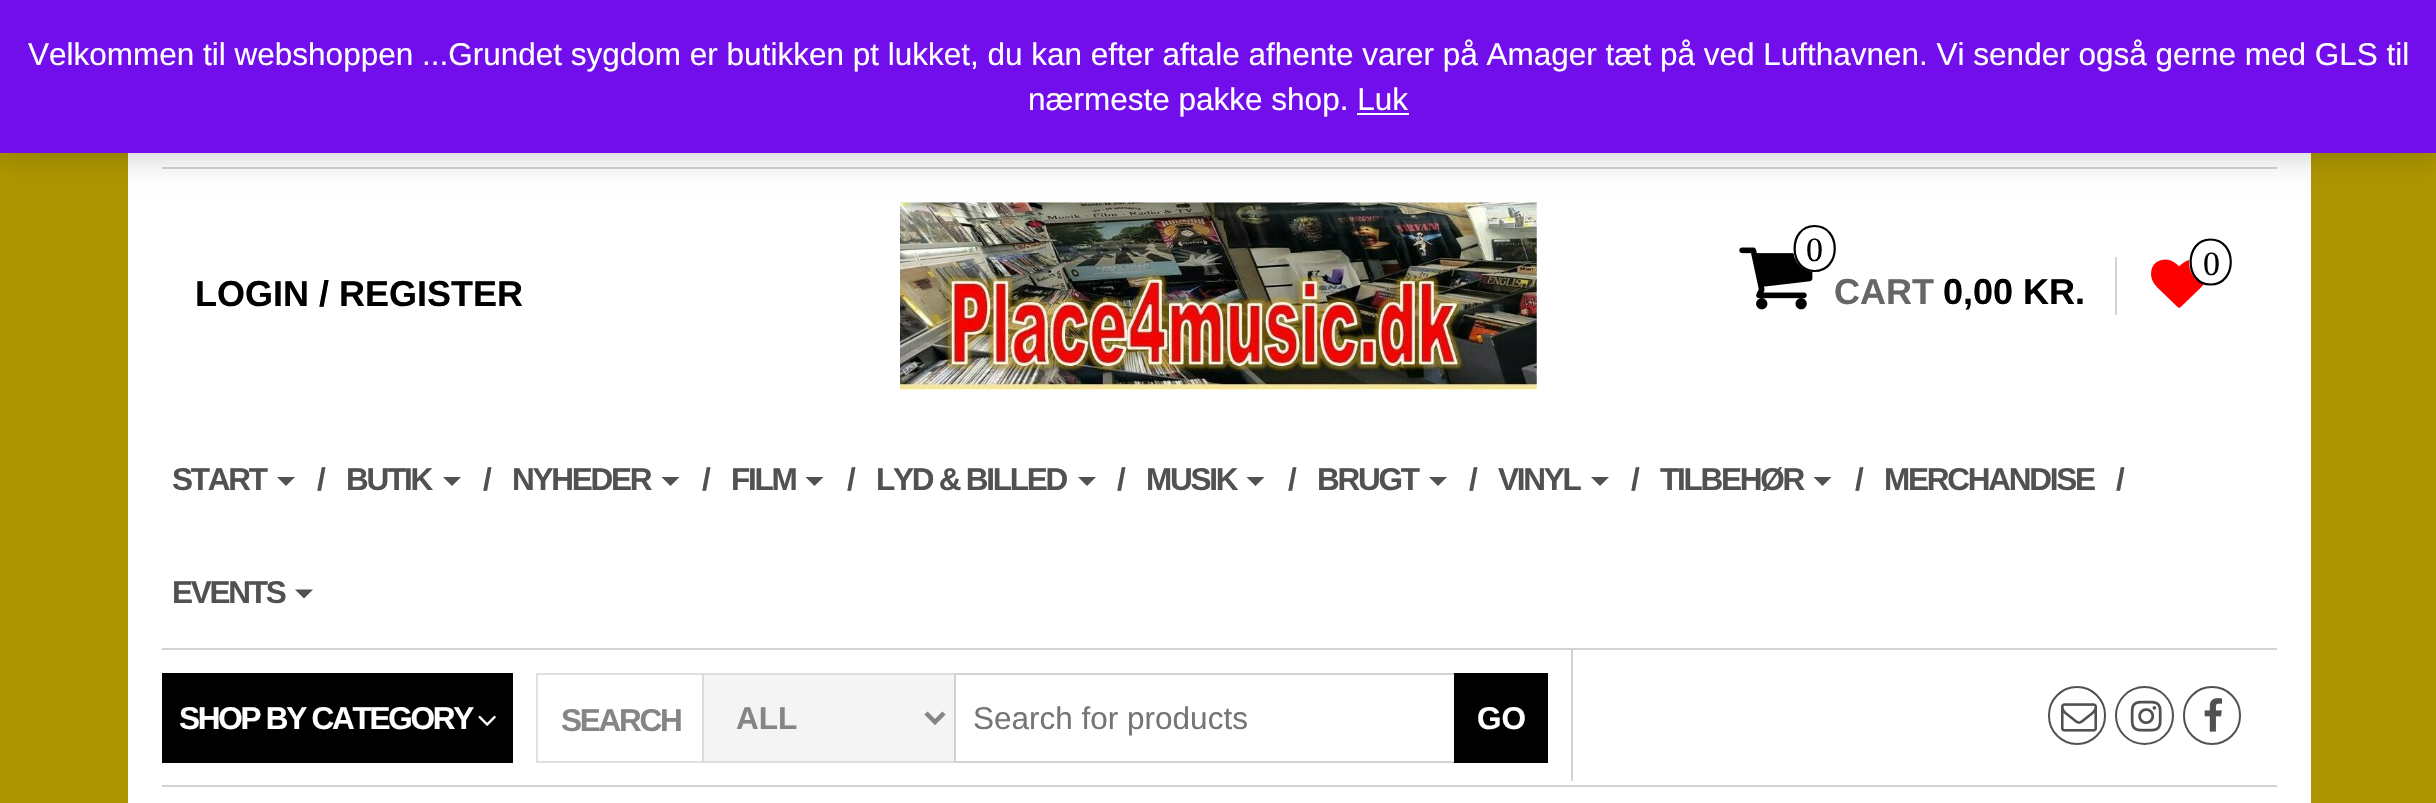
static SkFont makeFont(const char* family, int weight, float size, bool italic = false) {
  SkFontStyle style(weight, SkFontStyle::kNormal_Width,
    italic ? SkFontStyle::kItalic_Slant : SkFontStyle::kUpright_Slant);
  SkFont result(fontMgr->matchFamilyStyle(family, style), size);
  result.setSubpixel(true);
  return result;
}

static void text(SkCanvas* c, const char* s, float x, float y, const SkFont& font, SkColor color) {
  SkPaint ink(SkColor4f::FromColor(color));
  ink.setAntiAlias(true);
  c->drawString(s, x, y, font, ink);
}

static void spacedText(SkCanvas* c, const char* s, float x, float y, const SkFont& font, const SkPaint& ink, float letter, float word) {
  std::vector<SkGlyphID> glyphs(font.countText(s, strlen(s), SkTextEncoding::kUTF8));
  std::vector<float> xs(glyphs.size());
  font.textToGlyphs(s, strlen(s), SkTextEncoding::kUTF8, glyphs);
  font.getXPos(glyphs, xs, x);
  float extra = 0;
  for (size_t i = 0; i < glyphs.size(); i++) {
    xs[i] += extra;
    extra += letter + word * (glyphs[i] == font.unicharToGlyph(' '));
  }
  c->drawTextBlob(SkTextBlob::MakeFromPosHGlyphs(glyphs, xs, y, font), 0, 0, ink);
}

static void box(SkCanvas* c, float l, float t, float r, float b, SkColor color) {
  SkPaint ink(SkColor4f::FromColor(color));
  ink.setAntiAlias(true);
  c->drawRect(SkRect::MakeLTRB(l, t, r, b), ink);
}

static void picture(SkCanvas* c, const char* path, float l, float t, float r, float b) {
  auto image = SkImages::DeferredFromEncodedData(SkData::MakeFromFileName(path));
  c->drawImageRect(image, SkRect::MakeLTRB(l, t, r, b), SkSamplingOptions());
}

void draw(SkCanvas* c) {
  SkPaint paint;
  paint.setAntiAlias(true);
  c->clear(0xffad9600);
  box(c, 128, 153, 2311, 803, 0xffffffff);
  box(c, 162, 167, 2277, 169, 0xffd3d3d3);
  picture(c, "img_01.png", 900, 202, 1537, 390);
  paint.setColor(0x33000000);
  paint.setMaskFilter(SkMaskFilter::MakeBlur(kNormal_SkBlurStyle, 16));
  c->drawRect(SkRect::MakeLTRB(0, 2, 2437, 155), paint);
  paint.setMaskFilter(nullptr);
  box(c, 0, 0, 2436, 153, 0xff720eec);
  SkFont face1 = makeFont("Liberation Sans", 400, 31.5f);
  text(c, "Velkommen til webshoppen ...Grundet sygdom er butikken pt lukket, du kan efter aftale afhente varer på Amager tæt på ved Lufthavnen. Vi sender også gerne med GLS til", 28, 65, face1, 0xffffffff);
  text(c, "nærmeste pakke shop. Luk", 1028, 110, face1, 0xffffffff);
  box(c, 1357, 113, 1409, 115, 0xfffcfbfe);
  SkFont face2 = makeFont("Liberation Sans", 700, 36);
  text(c, "LOGIN / REGISTER", 195, 306, face2, 0xff000000);
  picture(c, "img_02.png", 1739, 247, 1813, 310);
  paint.setColor(0xffffffff);
  c->drawOval(SkRect::MakeLTRB(1793, 225, 1836, 272), paint);
  paint.setStyle(SkPaint::kStroke_Style);
  paint.setStrokeWidth(2.2f);
  paint.setColor(0xff000000);
  c->drawPath(SkPathBuilder().moveTo(1814.5f, 226).cubicTo(1841.5f, 226, 1841.5f, 271, 1814.5f, 271).cubicTo(1788, 271, 1788, 226, 1814.5f, 226).close().detach(), paint);
  SkFont face3 = makeFont("Liberation Serif", 400, 34);
  text(c, "0", 1806, 261, face3, 0xff000000);
  text(c, "CART", 1834, 304, face2, 0xff666666);
  text(c, "0,00 KR.", 1943, 304, face2, 0xff000000);
  box(c, 2115, 257, 2117, 315, 0xffd3d3d3);
  picture(c, "img_03.png", 2151, 259, 2204, 308);
  paint.setStyle(SkPaint::kFill_Style);
  paint.setColor(0xffffffff);
  c->drawOval(SkRect::MakeLTRB(2189, 238.5f, 2232, 285.5f), paint);
  paint.setStyle(SkPaint::kStroke_Style);
  paint.setColor(0xff000000);
  c->drawPath(SkPathBuilder().moveTo(2210.5f, 239.5f).cubicTo(2237.5f, 239.5f, 2237.5f, 284.5f, 2210.5f, 284.5f).cubicTo(2184, 284.5f, 2184, 239.5f, 2210.5f, 239.5f).close().detach(), paint);
  text(c, "0", 2203, 275, face3, 0xff000000);
  box(c, 162, 648, 2277, 650, 0xffd3d3d3);
  SkFont face4 = makeFont("Liberation Sans", 700, 31.5f);
  paint.setStyle(SkPaint::kFill_Style);
  paint.setColor(0xff515151);
  spacedText(c, "START", 172, 490, face4, paint, -2.25f, 0);
  c->drawPath(SkPathBuilder().moveTo(277, 477).lineTo(295, 477).lineTo(286, 486).close().detach(), paint);
  spacedText(c, "/", 317, 490, face4, paint, -2.25f, 0);
  spacedText(c, "BUTIK", 346, 490, face4, paint, -2.25f, 0);
  c->drawPath(SkPathBuilder().moveTo(443, 477).lineTo(461, 477).lineTo(452, 486).close().detach(), paint);
  spacedText(c, "/", 483, 490, face4, paint, -2.25f, 0);
  spacedText(c, "NYHEDER", 512, 490, face4, paint, -2.25f, 0);
  c->drawPath(SkPathBuilder().moveTo(661.5f, 477).lineTo(679.5f, 477).lineTo(670.5f, 486).close().detach(), paint);
  spacedText(c, "/", 702, 490, face4, paint, -2.25f, 0);
  spacedText(c, "FILM", 731, 490, face4, paint, -2.25f, 0);
  c->drawPath(SkPathBuilder().moveTo(805.5f, 477).lineTo(823.5f, 477).lineTo(814.5f, 486).close().detach(), paint);
  spacedText(c, "/", 847, 490, face4, paint, -2.25f, 0);
  spacedText(c, "LYD & BILLED", 876, 490, face4, paint, -2.25f, 0);
  c->drawPath(SkPathBuilder().moveTo(1078, 477).lineTo(1096, 477).lineTo(1087, 486).close().detach(), paint);
  spacedText(c, "/", 1117, 490, face4, paint, -2.25f, 0);
  spacedText(c, "MUSIK", 1146, 490, face4, paint, -2.25f, 0);
  c->drawPath(SkPathBuilder().moveTo(1246.5f, 477).lineTo(1264.5f, 477).lineTo(1255.5f, 486).close().detach(), paint);
  spacedText(c, "/", 1288, 490, face4, paint, -2.25f, 0);
  spacedText(c, "BRUGT", 1317, 490, face4, paint, -2.25f, 0);
  c->drawPath(SkPathBuilder().moveTo(1429, 477).lineTo(1447, 477).lineTo(1438, 486).close().detach(), paint);
  spacedText(c, "/", 1469, 490, face4, paint, -2.25f, 0);
  spacedText(c, "VINYL", 1498, 490, face4, paint, -2.25f, 0);
  c->drawPath(SkPathBuilder().moveTo(1591, 477).lineTo(1609, 477).lineTo(1600, 486).close().detach(), paint);
  spacedText(c, "/", 1631, 490, face4, paint, -2.25f, 0);
  spacedText(c, "TILBEHØR", 1660, 490, face4, paint, -2.25f, 0);
  c->drawPath(SkPathBuilder().moveTo(1813.5f, 477).lineTo(1831.5f, 477).lineTo(1822.5f, 486).close().detach(), paint);
  spacedText(c, "/", 1855, 490, face4, paint, -2.25f, 0);
  spacedText(c, "MERCHANDISE", 1884, 490, face4, paint, -2.25f, 0);
  spacedText(c, "/", 2116, 490, face4, paint, -2.25f, 0);
  spacedText(c, "EVENTS", 172, 603, face4, paint, -2.25f, 0);
  c->drawPath(SkPathBuilder().moveTo(295, 589.5f).lineTo(313, 589.5f).lineTo(304, 598.5f).close().detach(), paint);
  box(c, 162, 785, 2277, 787, 0xffd3d3d3);
  box(c, 162, 673, 513, 763, 0xff000000);
  paint.setColor(0xffffffff);
  spacedText(c, "SHOP BY CATEGORY", 179, 729, face4, paint, -2.25f, 0);
  picture(c, "img_04.png", 478, 715, 496, 726);
  paint.setStyle(SkPaint::kStroke_Style);
  paint.setStrokeWidth(2);
  paint.setColor(0xffe0e0e0);
  c->drawRect(SkRect::MakeLTRB(537, 674, 703, 762), paint);
  paint.setStyle(SkPaint::kFill_Style);
  paint.setColor(0xff858585);
  spacedText(c, "SEARCH", 561, 731, face4, paint, -2.25f, 0);
  box(c, 702, 673, 954, 763, 0xb3efefef);
  paint.setStyle(SkPaint::kStroke_Style);
  paint.setColor(0xb3d3d3d3);
  c->drawRect(SkRect::MakeLTRB(703, 674, 955, 762), paint);
  paint.setStrokeWidth(4.5f);
  paint.setColor(0xff858585);
  c->drawPath(SkPathBuilder().moveTo(926, 713).lineTo(935, 722).lineTo(944, 713).detach(), paint);
  text(c, "ALL", 736, 729, face4, 0xff858585);
  paint.setStrokeWidth(2);
  paint.setColor(0xffd3d3d3);
  c->drawRect(SkRect::MakeLTRB(955, 674, 1543, 762), paint);
  text(c, "Search for products", 973, 729, face1, 0xff757575);
  box(c, 1454, 673, 1548, 763, 0xff000000);
  text(c, "GO", 1477, 729, face4, 0xffffffff);
  box(c, 1571, 650, 1573, 781, 0xffd3d3d3);
  paint.setColor(0xff515151);
  c->drawRoundRect(SkRect::MakeLTRB(2049, 687, 2105, 744), 28, 28, paint);
  picture(c, "img_05.png", 2061, 703, 2097, 732);
  c->drawCircle(2144.5f, 715.5f, 28.5f, paint);
  picture(c, "img_06.png", 2130, 700, 2162, 732);
  c->drawRoundRect(SkRect::MakeLTRB(2184, 687, 2240, 744), 28, 28, paint);
  picture(c, "img_07.png", 2204, 698, 2222, 732);
}
